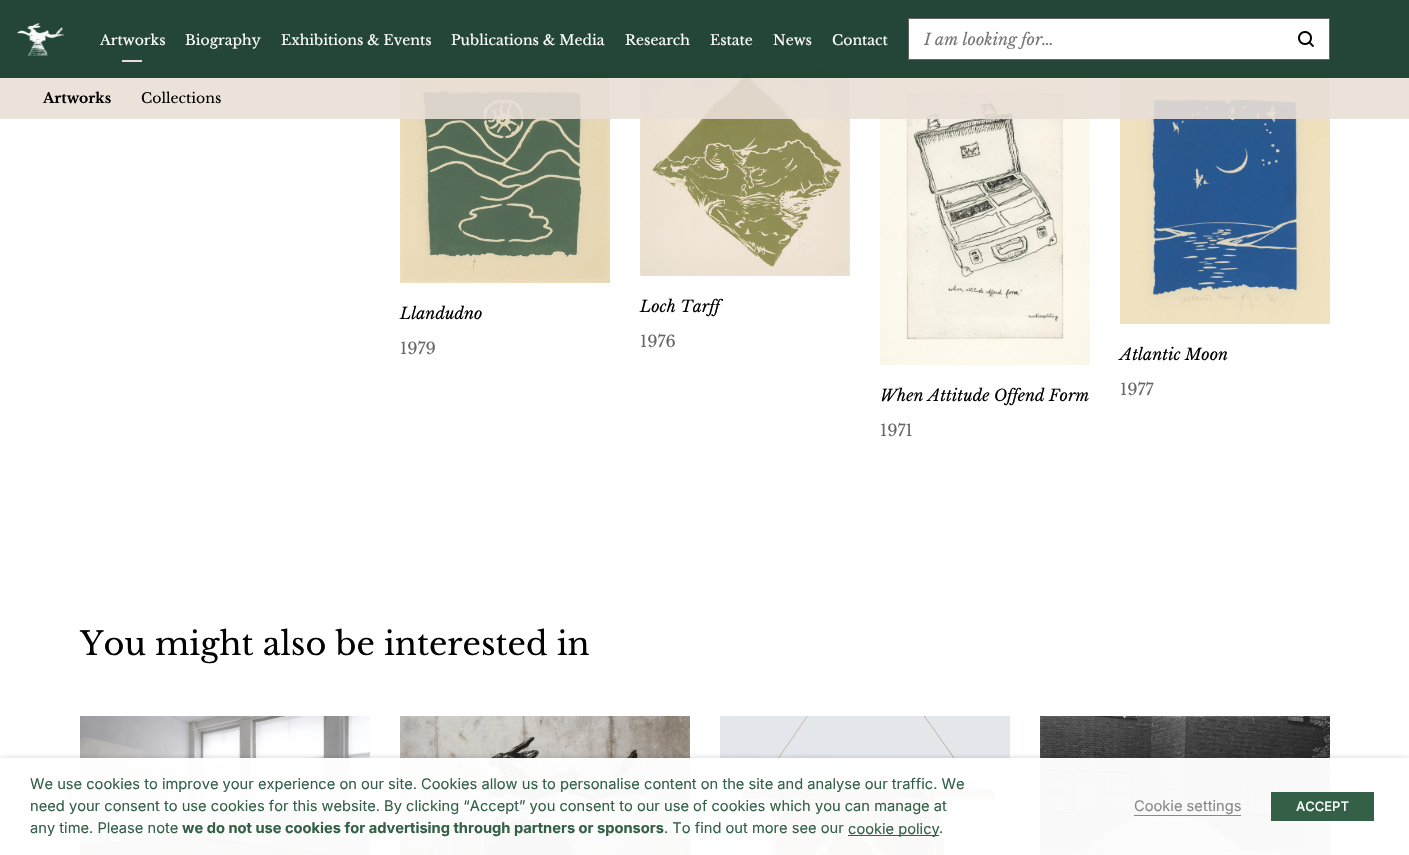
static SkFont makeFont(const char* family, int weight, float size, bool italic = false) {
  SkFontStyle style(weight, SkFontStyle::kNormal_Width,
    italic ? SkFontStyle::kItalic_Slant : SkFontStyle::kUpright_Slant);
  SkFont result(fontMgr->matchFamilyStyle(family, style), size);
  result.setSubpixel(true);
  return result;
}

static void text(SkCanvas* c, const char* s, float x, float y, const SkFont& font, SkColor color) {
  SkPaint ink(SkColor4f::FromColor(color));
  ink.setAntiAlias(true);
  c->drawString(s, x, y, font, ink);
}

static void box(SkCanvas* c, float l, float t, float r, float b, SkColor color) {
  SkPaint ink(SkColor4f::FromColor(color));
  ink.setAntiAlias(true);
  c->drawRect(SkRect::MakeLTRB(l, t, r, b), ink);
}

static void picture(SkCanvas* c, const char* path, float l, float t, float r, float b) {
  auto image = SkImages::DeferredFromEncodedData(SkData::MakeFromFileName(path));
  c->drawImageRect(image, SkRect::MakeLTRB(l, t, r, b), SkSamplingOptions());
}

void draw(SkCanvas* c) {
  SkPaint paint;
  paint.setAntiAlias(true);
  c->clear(0xffffffff);
  picture(c, "img_03.png", 400, 67, 610, 283);
  picture(c, "img_04.png", 640, 67, 850, 276);
  picture(c, "img_05.png", 1120, 67, 1330, 324);
  picture(c, "img_06.png", 880, 67, 1090, 365);
  box(c, 0, 0, 1409, 78, 0xf2173c2d);
  picture(c, "img_01.png", 17, 23, 65, 56);
  SkFont face1 = makeFont("Libre Baskerville", 400, 14);
  text(c, "Artworks", 100, 45, face1, 0xffffffff);
  box(c, 122, 60, 142, 62, 0xffe9dfd6);
  text(c, "Biography", 185, 45, face1, 0xffffffff);
  text(c, "Exhibitions & Events", 281, 45, face1, 0xffffffff);
  text(c, "Publications & Media", 451, 45, face1, 0xffffffff);
  text(c, "Research", 625, 45, face1, 0xffffffff);
  text(c, "Estate", 710, 45, face1, 0xffffffff);
  text(c, "News", 773, 45, face1, 0xffffffff);
  text(c, "Contact", 832, 45, face1, 0xffffffff);
  paint.setColor(0xffffffff);
  c->drawRect(SkRect::MakeLTRB(908.5f, 18.5f, 1329.5f, 59.5f), paint);
  paint.setStyle(SkPaint::kStroke_Style);
  paint.setStrokeWidth(1);
  paint.setColor(0xff666666);
  c->drawRect(SkRect::MakeLTRB(908.5f, 18.5f, 1329.5f, 59.5f), paint);
  c->save();
  c->clipRect(SkRect::MakeLTRB(924, 29, 1253, 49));
  SkFont face2 = makeFont("Libre Baskerville", 400, 16, true);
  text(c, "I am looking for…", 924, 45, face2, 0xff757575);
  c->restore();
  picture(c, "img_02.png", 1298, 31, 1314, 47);
  box(c, 0, 78, 1409, 119, 0xe6e9dfd6);
  SkFont face3 = makeFont("Libre Baskerville", 700, 14);
  text(c, "Artworks", 43, 103, face3, 0xff000000);
  text(c, "Collections", 141, 103, face1, 0xff000000);
  text(c, "Llandudno", 400, 319, face2, 0xff000000);
  SkFont face4 = makeFont("Libre Baskerville", 400, 16);
  text(c, "1979", 400, 354, face4, 0xff666666);
  text(c, "Loch Tarff", 640, 312, face2, 0xff000000);
  text(c, "1976", 640, 347, face4, 0xff666666);
  text(c, "Atlantic Moon", 1120, 360, face2, 0xff000000);
  text(c, "1977", 1120, 395, face4, 0xff666666);
  text(c, "When Attitude Offend Form", 880, 401, face2, 0xff000000);
  text(c, "1971", 880, 436, face4, 0xff666666);
  SkFont face5 = makeFont("Libre Baskerville", 400, 32);
  text(c, "You might also be interested in", 80, 655, face5, 0xff000000);
  picture(c, "img_07.png", 80, 716, 370, 855);
  picture(c, "img_08.png", 400, 716, 690, 855);
  picture(c, "img_09.png", 720, 716, 1010, 855);
  picture(c, "img_10.png", 1040, 716, 1330, 855);
  c->save();
  c->clipRect(SkRect::MakeLTRB(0, 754, 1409, 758));
  paint.setStyle(SkPaint::kFill_Style);
  paint.setColor(0x80000000);
  paint.setMaskFilter(SkMaskFilter::MakeBlur(kNormal_SkBlurStyle, 5));
  c->drawRect(SkRect::MakeLTRB(0, 763, 1409, 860), paint);
  paint.setMaskFilter(nullptr);
  c->restore();
  box(c, 80, 758, 1330, 855, 0xf7ffffff);
  SkFont face6 = makeFont("Inter", 400, 14.67f);
  text(c, "We use cookies to improve your experience on our site. Cookies allow us to personalise content on the site and analyse our traffic. We", 30, 789, face6, 0xff336047);
  text(c, "need your consent to use cookies for this website. By clicking “Accept” you consent to our use of cookies which you can manage at", 30, 811, face6, 0xff336047);
  text(c, "any time. Please note", 30, 833, face6, 0xff336047);
  SkFont face7 = makeFont("Inter", 700, 14.67f);
  text(c, "we do not use cookies for advertising through partners or sponsors", 182, 833, face7, 0xff336047);
  text(c, ". To find out more see our", 664, 833, face6, 0xff336047);
  box(c, 848, 835, 939, 836, 0xff336047);
  text(c, "cookie policy", 848, 834, face6, 0xff336047);
  text(c, ".", 939, 833, face6, 0xff336047);
  text(c, "Cookie settings", 1134, 811, face6, 0xff898888);
  box(c, 1134, 815, 1241, 816, 0xff898888);
  box(c, 1271, 792, 1374, 821, 0xff336047);
  SkFont face8 = makeFont("Inter", 500, 13);
  text(c, "ACCEPT", 1296, 811, face8, 0xffffffff);
}
